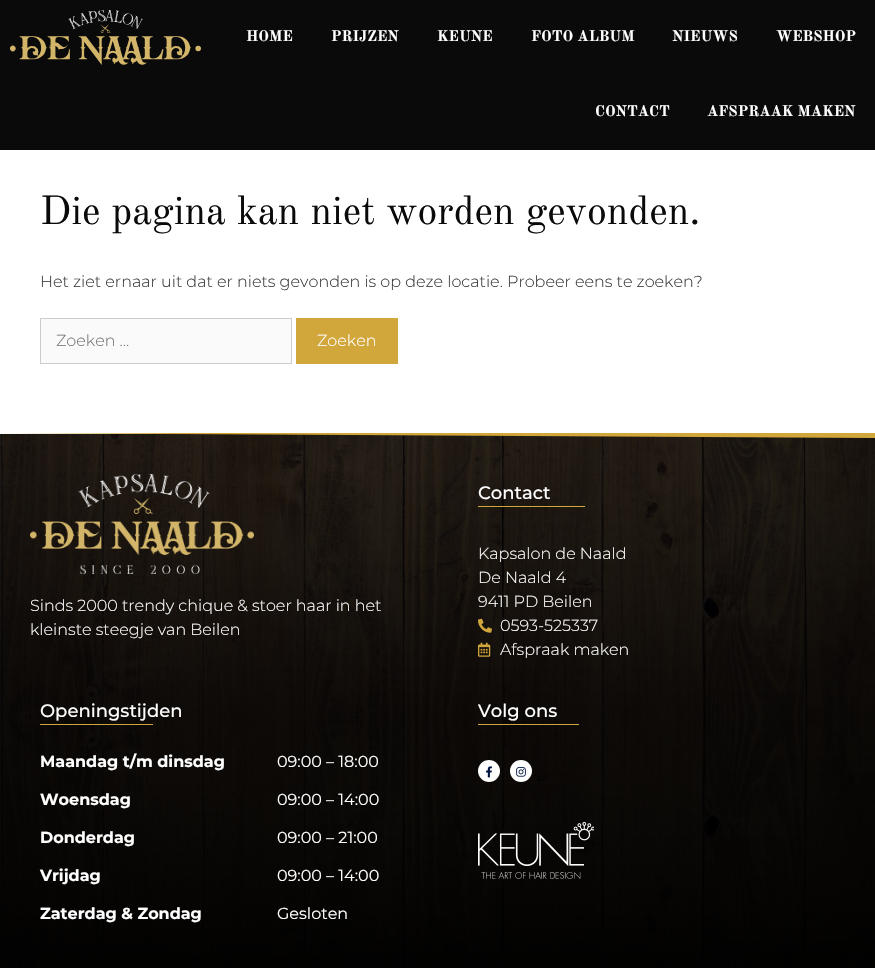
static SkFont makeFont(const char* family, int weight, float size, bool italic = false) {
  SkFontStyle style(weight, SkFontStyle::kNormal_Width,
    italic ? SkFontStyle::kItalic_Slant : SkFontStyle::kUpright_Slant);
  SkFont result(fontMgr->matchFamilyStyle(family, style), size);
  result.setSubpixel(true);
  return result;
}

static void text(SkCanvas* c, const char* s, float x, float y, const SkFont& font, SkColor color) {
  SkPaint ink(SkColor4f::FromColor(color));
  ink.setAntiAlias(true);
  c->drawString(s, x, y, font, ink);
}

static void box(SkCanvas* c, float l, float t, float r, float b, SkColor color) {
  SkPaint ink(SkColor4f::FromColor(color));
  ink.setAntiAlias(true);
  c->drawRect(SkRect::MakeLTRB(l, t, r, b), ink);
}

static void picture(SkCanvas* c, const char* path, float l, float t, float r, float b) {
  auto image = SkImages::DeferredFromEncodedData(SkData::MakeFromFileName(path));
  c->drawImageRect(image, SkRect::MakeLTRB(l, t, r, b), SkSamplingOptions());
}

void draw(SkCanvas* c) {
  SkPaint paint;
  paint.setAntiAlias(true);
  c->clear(0xffffffff);
  box(c, 0, 0, 875, 150, 0xff0a0a0a);
  picture(c, "img_01.png", 10, 10, 201, 65);
  SkFont face1 = makeFont("Old Standard TT", 700, 15);
  text(c, "HOME", 246, 41, face1, 0xffffffff);
  text(c, "PRIJZEN", 331, 41, face1, 0xffffffff);
  text(c, "KEUNE", 437, 41, face1, 0xffffffff);
  text(c, "FOTO ALBUM", 531, 41, face1, 0xffffffff);
  text(c, "NIEUWS", 672, 41, face1, 0xffffffff);
  text(c, "WEBSHOP", 776, 41, face1, 0xffffffff);
  text(c, "CONTACT", 595, 116, face1, 0xffffffff);
  text(c, "AFSPRAAK MAKEN", 707, 116, face1, 0xffffffff);
  SkFont face2 = makeFont("Old Standard TT", 400, 40);
  text(c, "Die pagina kan niet worden gevonden.", 40, 224, face2, 0xff0a0a0a);
  SkFont face3 = makeFont("Montserrat", 300, 16);
  text(c, "Het ziet ernaar uit dat er niets gevonden is op deze locatie. Probeer eens te zoeken?", 40, 287, face3, 0xff3a3a3a);
  paint.setColor(0xfffafafa);
  c->drawRect(SkRect::MakeLTRB(40.5f, 318.5f, 291.5f, 363.5f), paint);
  paint.setStyle(SkPaint::kStroke_Style);
  paint.setStrokeWidth(1);
  paint.setColor(0xffcccccc);
  c->drawRect(SkRect::MakeLTRB(40.5f, 318.5f, 291.5f, 363.5f), paint);
  text(c, "Zoeken …", 56, 346, face3, 0xff757575);
  box(c, 296, 318, 398, 364, 0xffd1a63a);
  text(c, "Zoeken", 317, 346, face3, 0xffffffff);
  picture(c, "img_02.png", 0, 434, 875, 968);
  paint.setStyle(SkPaint::kFill_Style);
  paint.setColor(0xffd1a63a);
  c->drawPath(SkPathBuilder().moveTo(0, 433).lineTo(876, 433).lineTo(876, 438).close().detach(), paint);
  picture(c, "img_03.png", 30, 474, 254, 574);
  text(c, "Sinds 2000 trendy chique & stoer haar in het", 30, 611, face3, 0xffffffff);
  text(c, "kleinste steegje van Beilen", 30, 635, face3, 0xffffffff);
  SkFont face4 = makeFont("Montserrat", 500, 18);
  text(c, "Contact", 478, 499, face4, 0xffffffff);
  box(c, 478, 506, 585, 507, 0xffd1a63a);
  text(c, "Kapsalon de Naald", 478, 559, face3, 0xffffffff);
  text(c, "De Naald 4", 478, 583, face3, 0xffffffff);
  text(c, "9411 PD Beilen", 478, 607, face3, 0xffffffff);
  picture(c, "img_04.png", 478, 618, 492, 633);
  text(c, "0593-525337", 500, 631, face3, 0xffffffff);
  picture(c, "img_05.png", 478, 642, 491, 657);
  text(c, "Afspraak maken", 500, 655, face3, 0xffffffff);
  text(c, "Openingstijden", 40, 717, face4, 0xffffffff);
  box(c, 40, 724, 153, 725, 0xffd1a63a);
  SkFont face5 = makeFont("Montserrat", 700, 16);
  text(c, "Maandag t/m dinsdag", 40, 767, face5, 0xffffffff);
  SkFont face6 = makeFont("Montserrat", 400, 16);
  text(c, "09:00 – 18:00", 277, 767, face6, 0xffffffff);
  text(c, "Woensdag", 40, 805, face5, 0xffffffff);
  text(c, "09:00 – 14:00", 277, 805, face6, 0xffffffff);
  text(c, "Donderdag", 40, 843, face5, 0xffffffff);
  text(c, "09:00 – 21:00", 277, 843, face6, 0xffffffff);
  text(c, "Vrijdag", 40, 881, face5, 0xffffffff);
  text(c, "09:00 – 14:00", 277, 881, face6, 0xffffffff);
  text(c, "Zaterdag & Zondag", 40, 919, face5, 0xffffffff);
  text(c, "Gesloten", 277, 919, face6, 0xffffffff);
  text(c, "Volg ons", 478, 717, face4, 0xffffffff);
  box(c, 478, 724, 579, 725, 0xffd1a63a);
  paint.setColor(0xffffffff);
  c->drawCircle(489, 771, 11, paint);
  picture(c, "img_06.png", 486, 766, 492, 778);
  c->drawCircle(521, 771, 11, paint);
  picture(c, "img_07.png", 516, 767, 526, 777);
  picture(c, "img_08.png", 478, 822, 594, 879);
}
